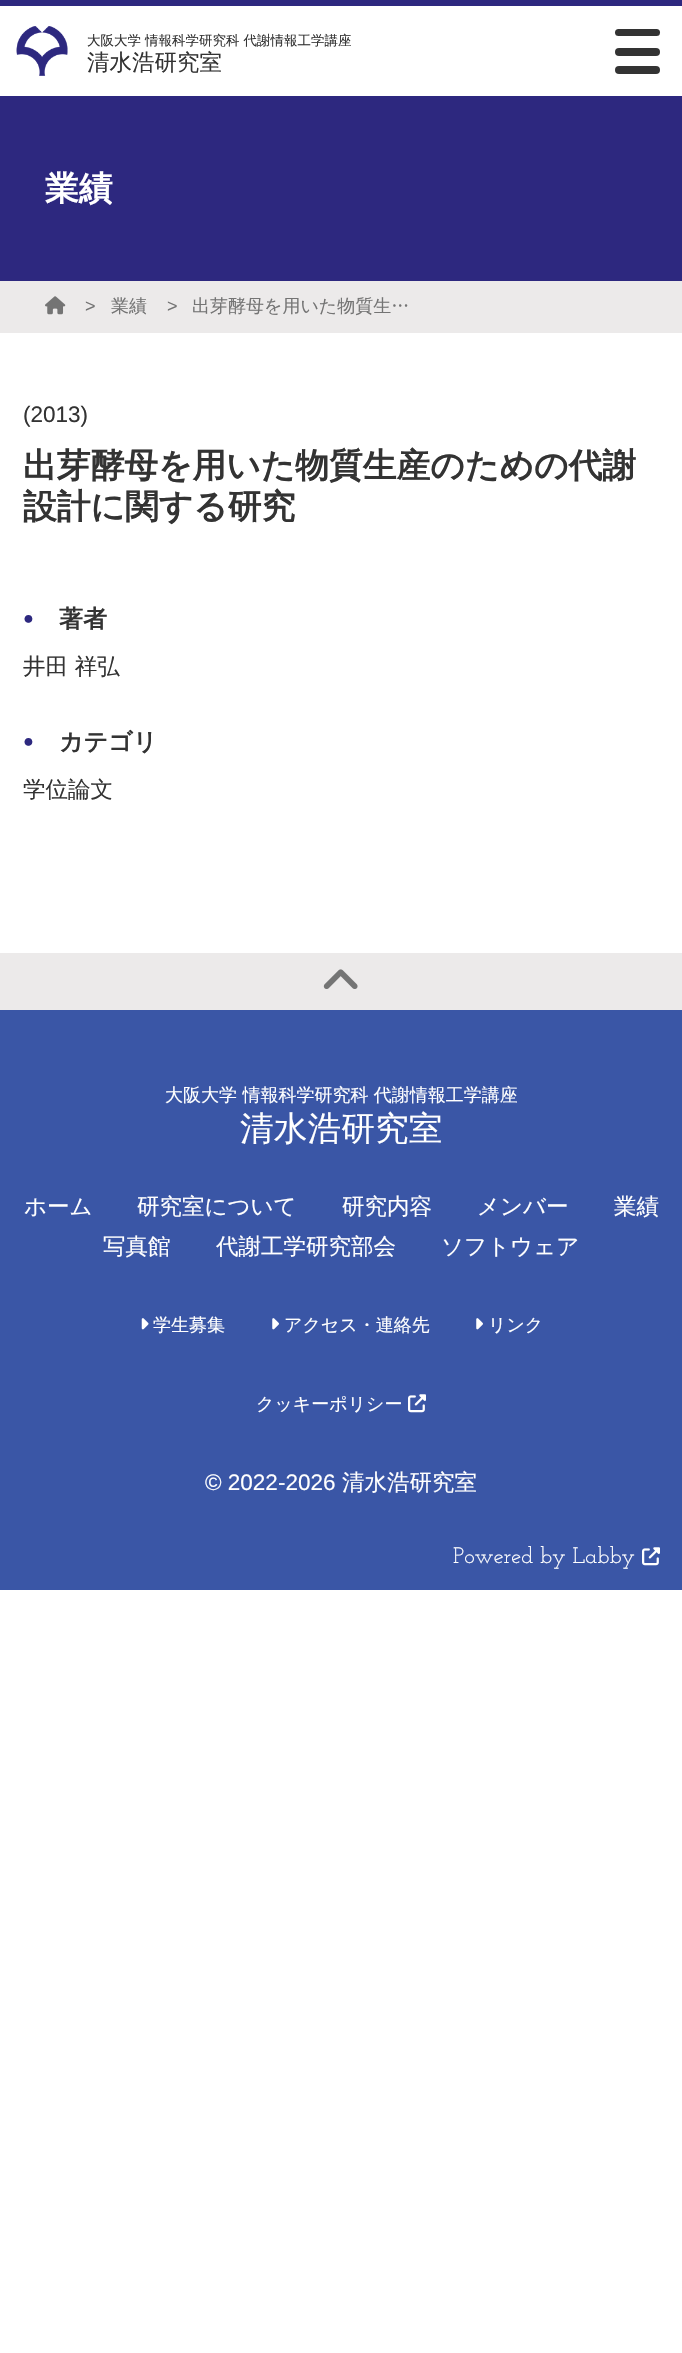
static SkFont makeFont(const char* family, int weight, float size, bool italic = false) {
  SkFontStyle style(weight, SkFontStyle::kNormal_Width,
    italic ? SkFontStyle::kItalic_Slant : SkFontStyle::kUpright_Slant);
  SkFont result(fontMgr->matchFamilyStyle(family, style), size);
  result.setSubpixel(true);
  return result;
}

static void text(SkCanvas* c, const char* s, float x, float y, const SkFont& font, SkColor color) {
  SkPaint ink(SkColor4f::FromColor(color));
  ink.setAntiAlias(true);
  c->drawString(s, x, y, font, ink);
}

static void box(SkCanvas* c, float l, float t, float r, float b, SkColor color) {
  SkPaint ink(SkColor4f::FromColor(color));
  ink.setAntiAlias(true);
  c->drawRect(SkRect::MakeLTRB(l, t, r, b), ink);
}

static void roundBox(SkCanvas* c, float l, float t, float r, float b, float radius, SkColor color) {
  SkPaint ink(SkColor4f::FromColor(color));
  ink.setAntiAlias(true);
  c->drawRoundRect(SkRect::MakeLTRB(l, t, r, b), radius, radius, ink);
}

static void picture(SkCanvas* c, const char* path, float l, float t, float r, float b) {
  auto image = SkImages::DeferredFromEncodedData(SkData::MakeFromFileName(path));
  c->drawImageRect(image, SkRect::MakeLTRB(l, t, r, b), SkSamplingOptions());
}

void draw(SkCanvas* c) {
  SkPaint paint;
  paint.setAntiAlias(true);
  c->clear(0xffffffff);
  box(c, 0, 0, 682, 6, 0xff2d287f);
  picture(c, "img_01.png", 16, 26, 68, 76);
  SkFont face1 = makeFont("WenQuanYi Zen Hei", 500, 13.5f);
  text(c, "大阪大学 情報科学研究科 代謝情報工学講座", 87, 45, face1, 0xff333333);
  SkFont face2 = makeFont("WenQuanYi Zen Hei", 500, 22.5f);
  text(c, "清水浩研究室", 87, 70, face2, 0xff333333);
  roundBox(c, 615, 29, 660, 36, 3.5f, 0xff333333);
  roundBox(c, 615, 48, 660, 56, 4, 0xff333333);
  roundBox(c, 615, 66, 660, 74, 4, 0xff333333);
  box(c, 0, 96, 682, 281, 0xff2d287f);
  SkFont face3 = makeFont("WenQuanYi Zen Hei", 700, 33.75f);
  text(c, "業績", 45, 200, face3, 0xffffffff);
  box(c, 0, 281, 682, 333, 0xffeceaea);
  picture(c, "img_02.png", 45, 296, 66, 315);
  SkFont face4 = makeFont("Liberation Sans", 400, 18);
  text(c, ">", 85, 312, face4, 0xff747474);
  SkFont face5 = makeFont("WenQuanYi Zen Hei", 500, 18);
  text(c, "業績", 111, 312, face5, 0xff747474);
  text(c, ">", 167, 312, face4, 0xff747474);
  text(c, "出芽酵母を用いた物質生…", 192, 312, face5, 0xff747474);
  SkFont face6 = makeFont("Liberation Sans", 400, 22.5f);
  text(c, "(2013)", 23, 422, face6, 0xff333333);
  text(c, "出芽酵母を用いた物質生産のための代謝", 23, 477, face3, 0xff333333);
  text(c, "設計に関する研究", 23, 518, face3, 0xff333333);
  SkFont face7 = makeFont("Liberation Sans", 700, 18);
  text(c, "●", 23, 624, face7, 0xff2d287f);
  SkFont face8 = makeFont("WenQuanYi Zen Hei", 700, 24);
  text(c, "著者", 59, 627, face8, 0xff333333);
  text(c, "井田 祥弘", 23, 674, face2, 0xff333333);
  text(c, "●", 23, 747, face7, 0xff2d287f);
  text(c, "カテゴリ", 59, 750, face8, 0xff333333);
  text(c, "学位論文", 23, 797, face2, 0xff333333);
  box(c, 0, 953, 682, 1010, 0xffeceaea);
  picture(c, "img_03.png", 323, 969, 358, 989);
  box(c, 0, 1010, 682, 1590, 0xff3a56a6);
  text(c, "大阪大学 情報科学研究科 代謝情報工学講座", 165, 1101, face5, 0xffffffff);
  SkFont face9 = makeFont("WenQuanYi Zen Hei", 500, 33.75f);
  text(c, "清水浩研究室", 240, 1140, face9, 0xffffffff);
  text(c, "ホーム", 24, 1214, face2, 0xffffffff);
  text(c, "研究室について", 137, 1214, face2, 0xffffffff);
  text(c, "研究内容", 342, 1214, face2, 0xffffffff);
  text(c, "メンバー", 477, 1214, face2, 0xffffffff);
  text(c, "業績", 614, 1214, face2, 0xffffffff);
  text(c, "写真館", 103, 1254, face2, 0xffffffff);
  text(c, "代謝工学研究部会", 216, 1254, face2, 0xffffffff);
  text(c, "ソフトウェア", 441, 1254, face2, 0xffffffff);
  picture(c, "img_04.png", 141, 1318, 149, 1330);
  text(c, "学生募集", 153, 1331, face5, 0xffffffff);
  picture(c, "img_05.png", 272, 1318, 279, 1330);
  text(c, "アクセス・連絡先", 284, 1331, face5, 0xffffffff);
  picture(c, "img_05.png", 476, 1318, 483, 1330);
  text(c, "リンク", 488, 1331, face5, 0xffffffff);
  text(c, "クッキーポリシー", 256, 1410, face5, 0xffffffff);
  picture(c, "img_06.png", 408, 1394, 426, 1413);
  text(c, "© 2022-2026", 205, 1490, face6, 0xffffffff);
  text(c, "清水浩研究室", 342, 1490, face2, 0xffffffff);
  SkFont face10 = makeFont("Josefin Slab", 100, 22.5f);
  text(c, "Powered by Labby", 453, 1563, face10, 0xffffffff);
  picture(c, "img_06.png", 642, 1547, 660, 1566);
}
